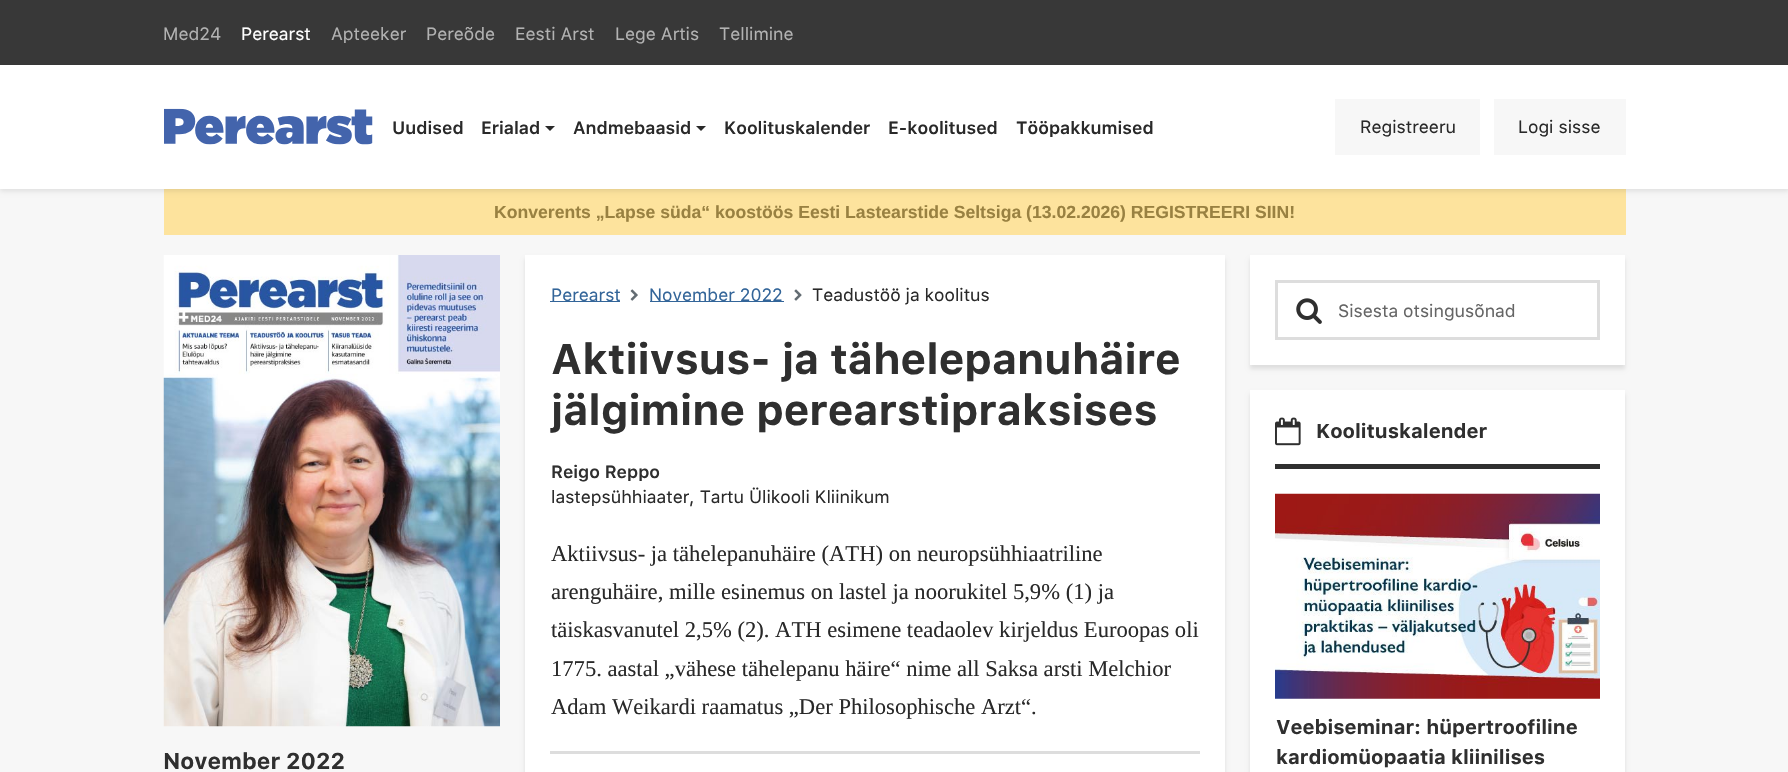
static SkFont makeFont(const char* family, int weight, float size, bool italic = false) {
  SkFontStyle style(weight, SkFontStyle::kNormal_Width,
    italic ? SkFontStyle::kItalic_Slant : SkFontStyle::kUpright_Slant);
  SkFont result(fontMgr->matchFamilyStyle(family, style), size);
  result.setSubpixel(true);
  return result;
}

static void text(SkCanvas* c, const char* s, float x, float y, const SkFont& font, SkColor color) {
  SkPaint ink(SkColor4f::FromColor(color));
  ink.setAntiAlias(true);
  c->drawString(s, x, y, font, ink);
}

static void box(SkCanvas* c, float l, float t, float r, float b, SkColor color) {
  SkPaint ink(SkColor4f::FromColor(color));
  ink.setAntiAlias(true);
  c->drawRect(SkRect::MakeLTRB(l, t, r, b), ink);
}

static void picture(SkCanvas* c, const char* path, float l, float t, float r, float b) {
  auto image = SkImages::DeferredFromEncodedData(SkData::MakeFromFileName(path));
  c->drawImageRect(image, SkRect::MakeLTRB(l, t, r, b), SkSamplingOptions());
}

void draw(SkCanvas* c) {
  SkPaint paint;
  paint.setAntiAlias(true);
  c->clear(0xfff7f7f7);
  box(c, 0, 0, 1788, 65, 0xff383838);
  SkFont face1 = makeFont("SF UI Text", 400, 17.6f);
  text(c, "Med24", 163, 40, face1, 0xffb2b2b2);
  text(c, "Perearst", 241, 40, face1, 0xffffffff);
  text(c, "Apteeker", 331, 40, face1, 0xffb2b2b2);
  text(c, "Pereõde", 426, 40, face1, 0xffb2b2b2);
  text(c, "Eesti Arst", 515, 40, face1, 0xffb2b2b2);
  text(c, "Lege Artis", 615, 40, face1, 0xffb2b2b2);
  text(c, "Tellimine", 719, 40, face1, 0xffb2b2b2);
  box(c, 164, 189, 1626, 235, 0xfffde39d);
  paint.setColor(0x1a000000);
  paint.setMaskFilter(SkMaskFilter::MakeBlur(kNormal_SkBlurStyle, 2.5f));
  c->drawRect(SkRect::MakeLTRB(0, 68, 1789, 191), paint);
  paint.setMaskFilter(nullptr);
  box(c, 0, 65, 1788, 189, 0xffffffff);
  picture(c, "img_01.png", 164, 108, 373, 145);
  SkFont face2 = makeFont("SF UI Text", 600, 17.6f);
  text(c, "Uudised", 392, 134, face2, 0xff292929);
  text(c, "Erialad", 481, 134, face2, 0xff292929);
  paint.setColor(0xff292929);
  c->drawPath(SkPathBuilder().moveTo(545, 126).lineTo(555, 126).lineTo(550, 131).close().detach(), paint);
  text(c, "Andmebaasid", 573, 134, face2, 0xff292929);
  c->drawPath(SkPathBuilder().moveTo(696, 126).lineTo(706, 126).lineTo(701, 131).close().detach(), paint);
  text(c, "Koolituskalender", 724, 134, face2, 0xff292929);
  text(c, "E-koolitused", 888, 134, face2, 0xff292929);
  text(c, "Tööpakkumised", 1016, 134, face2, 0xff292929);
  box(c, 1335, 99, 1480, 155, 0xfff7f7f7);
  text(c, "Registreeru", 1360, 133, face1, 0xff292929);
  box(c, 1494, 99, 1626, 155, 0xfff7f7f7);
  text(c, "Logi sisse", 1518, 133, face1, 0xff292929);
  SkFont face3 = makeFont("Liberation Sans", 700, 17.6f);
  text(c, "Konverents „Lapse süda“ koostöös Eesti Lastearstide Seltsiga (13.02.2026) REGISTREERI SIIN!", 494, 218, face3, 0xff998141);
  paint.setColor(0x1a000000);
  paint.setMaskFilter(SkMaskFilter::MakeBlur(kNormal_SkBlurStyle, 2));
  c->drawRect(SkRect::MakeLTRB(525, 259, 1225, 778), paint);
  paint.setMaskFilter(nullptr);
  box(c, 525, 255, 1225, 772, 0xffffffff);
  box(c, 550, 301, 620, 302, 0xff336599);
  text(c, "Perearst", 551, 301, face1, 0xff336599);
  picture(c, "img_02.png", 630, 289, 638, 301);
  box(c, 650, 301, 784, 302, 0xff336599);
  text(c, "November 2022", 649, 301, face1, 0xff336599);
  picture(c, "img_03.png", 794, 289, 802, 301);
  text(c, "Teadustöö ja koolitus", 812, 301, face1, 0xff292929);
  SkFont face4 = makeFont("SF UI Text", 700, 42.6f);
  text(c, "Aktiivsus- ja tähelepanuhäire", 551, 374, face4, 0xff2f2f2f);
  text(c, "jälgimine perearstipraksises", 551, 425, face4, 0xff2f2f2f);
  text(c, "Reigo Reppo", 551, 478, face2, 0xff2f2f2f);
  text(c, "lastepsühhiaater, Tartu Ülikooli Kliinikum", 551, 503, face1, 0xff292929);
  SkFont face5 = makeFont("Liberation Serif", 400, 22.6f);
  text(c, "Aktiivsus- ja tähelepanuhäire (ATH) on neuropsühhiaatriline", 551, 561, face5, 0xff292929);
  text(c, "arenguhäire, mille esinemus on lastel ja noorukitel 5,9% (1) ja", 551, 599, face5, 0xff292929);
  text(c, "täiskasvanutel 2,5% (2). ATH esimene teadaolev kirjeldus Euroopas oli", 551, 637, face5, 0xff292929);
  text(c, "1775. aastal „vähese tähelepanu häire“ nime all Saksa arsti Melchior", 551, 676, face5, 0xff292929);
  text(c, "Adam Weikardi raamatus „Der Philosophische Arzt“.", 551, 714, face5, 0xff292929);
  box(c, 550, 751, 1200, 754, 0xffdddddd);
  picture(c, "img_04.png", 163, 255, 500, 727);
  SkFont face6 = makeFont("SF UI Text", 700, 22.6f);
  text(c, "November 2022", 163, 769, face6, 0xff2f2f2f);
  paint.setMaskFilter(SkMaskFilter::MakeBlur(kNormal_SkBlurStyle, 2));
  c->drawRect(SkRect::MakeLTRB(1250, 259, 1625, 369), paint);
  paint.setMaskFilter(nullptr);
  box(c, 1250, 255, 1625, 365, 0xffffffff);
  paint.setStyle(SkPaint::kStroke_Style);
  paint.setStrokeWidth(3);
  paint.setColor(0xffdddddd);
  c->drawRect(SkRect::MakeLTRB(1276.5f, 281.5f, 1598.5f, 338.5f), paint);
  picture(c, "img_05.png", 1296, 298, 1322, 324);
  text(c, "Sisesta otsingusõnad", 1338, 317, face1, 0xff656565);
  paint.setStyle(SkPaint::kFill_Style);
  paint.setColor(0x1a000000);
  paint.setMaskFilter(SkMaskFilter::MakeBlur(kNormal_SkBlurStyle, 2));
  c->drawRect(SkRect::MakeLTRB(1250, 394, 1625, 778), paint);
  paint.setMaskFilter(nullptr);
  box(c, 1250, 390, 1625, 772, 0xffffffff);
  box(c, 1275, 464, 1600, 469, 0xff2f2f2f);
  picture(c, "img_06.png", 1275, 417, 1301, 446);
  SkFont face7 = makeFont("SF UI Text", 700, 20);
  text(c, "Koolituskalender", 1316, 438, face7, 0xff2f2f2f);
  picture(c, "img_07.png", 1275, 493, 1600, 699);
  text(c, "Veebiseminar: hüpertroofiline", 1276, 734, face7, 0xff2f2f2f);
  text(c, "kardiomüopaatia kliinilises", 1276, 764, face7, 0xff2f2f2f);
}
